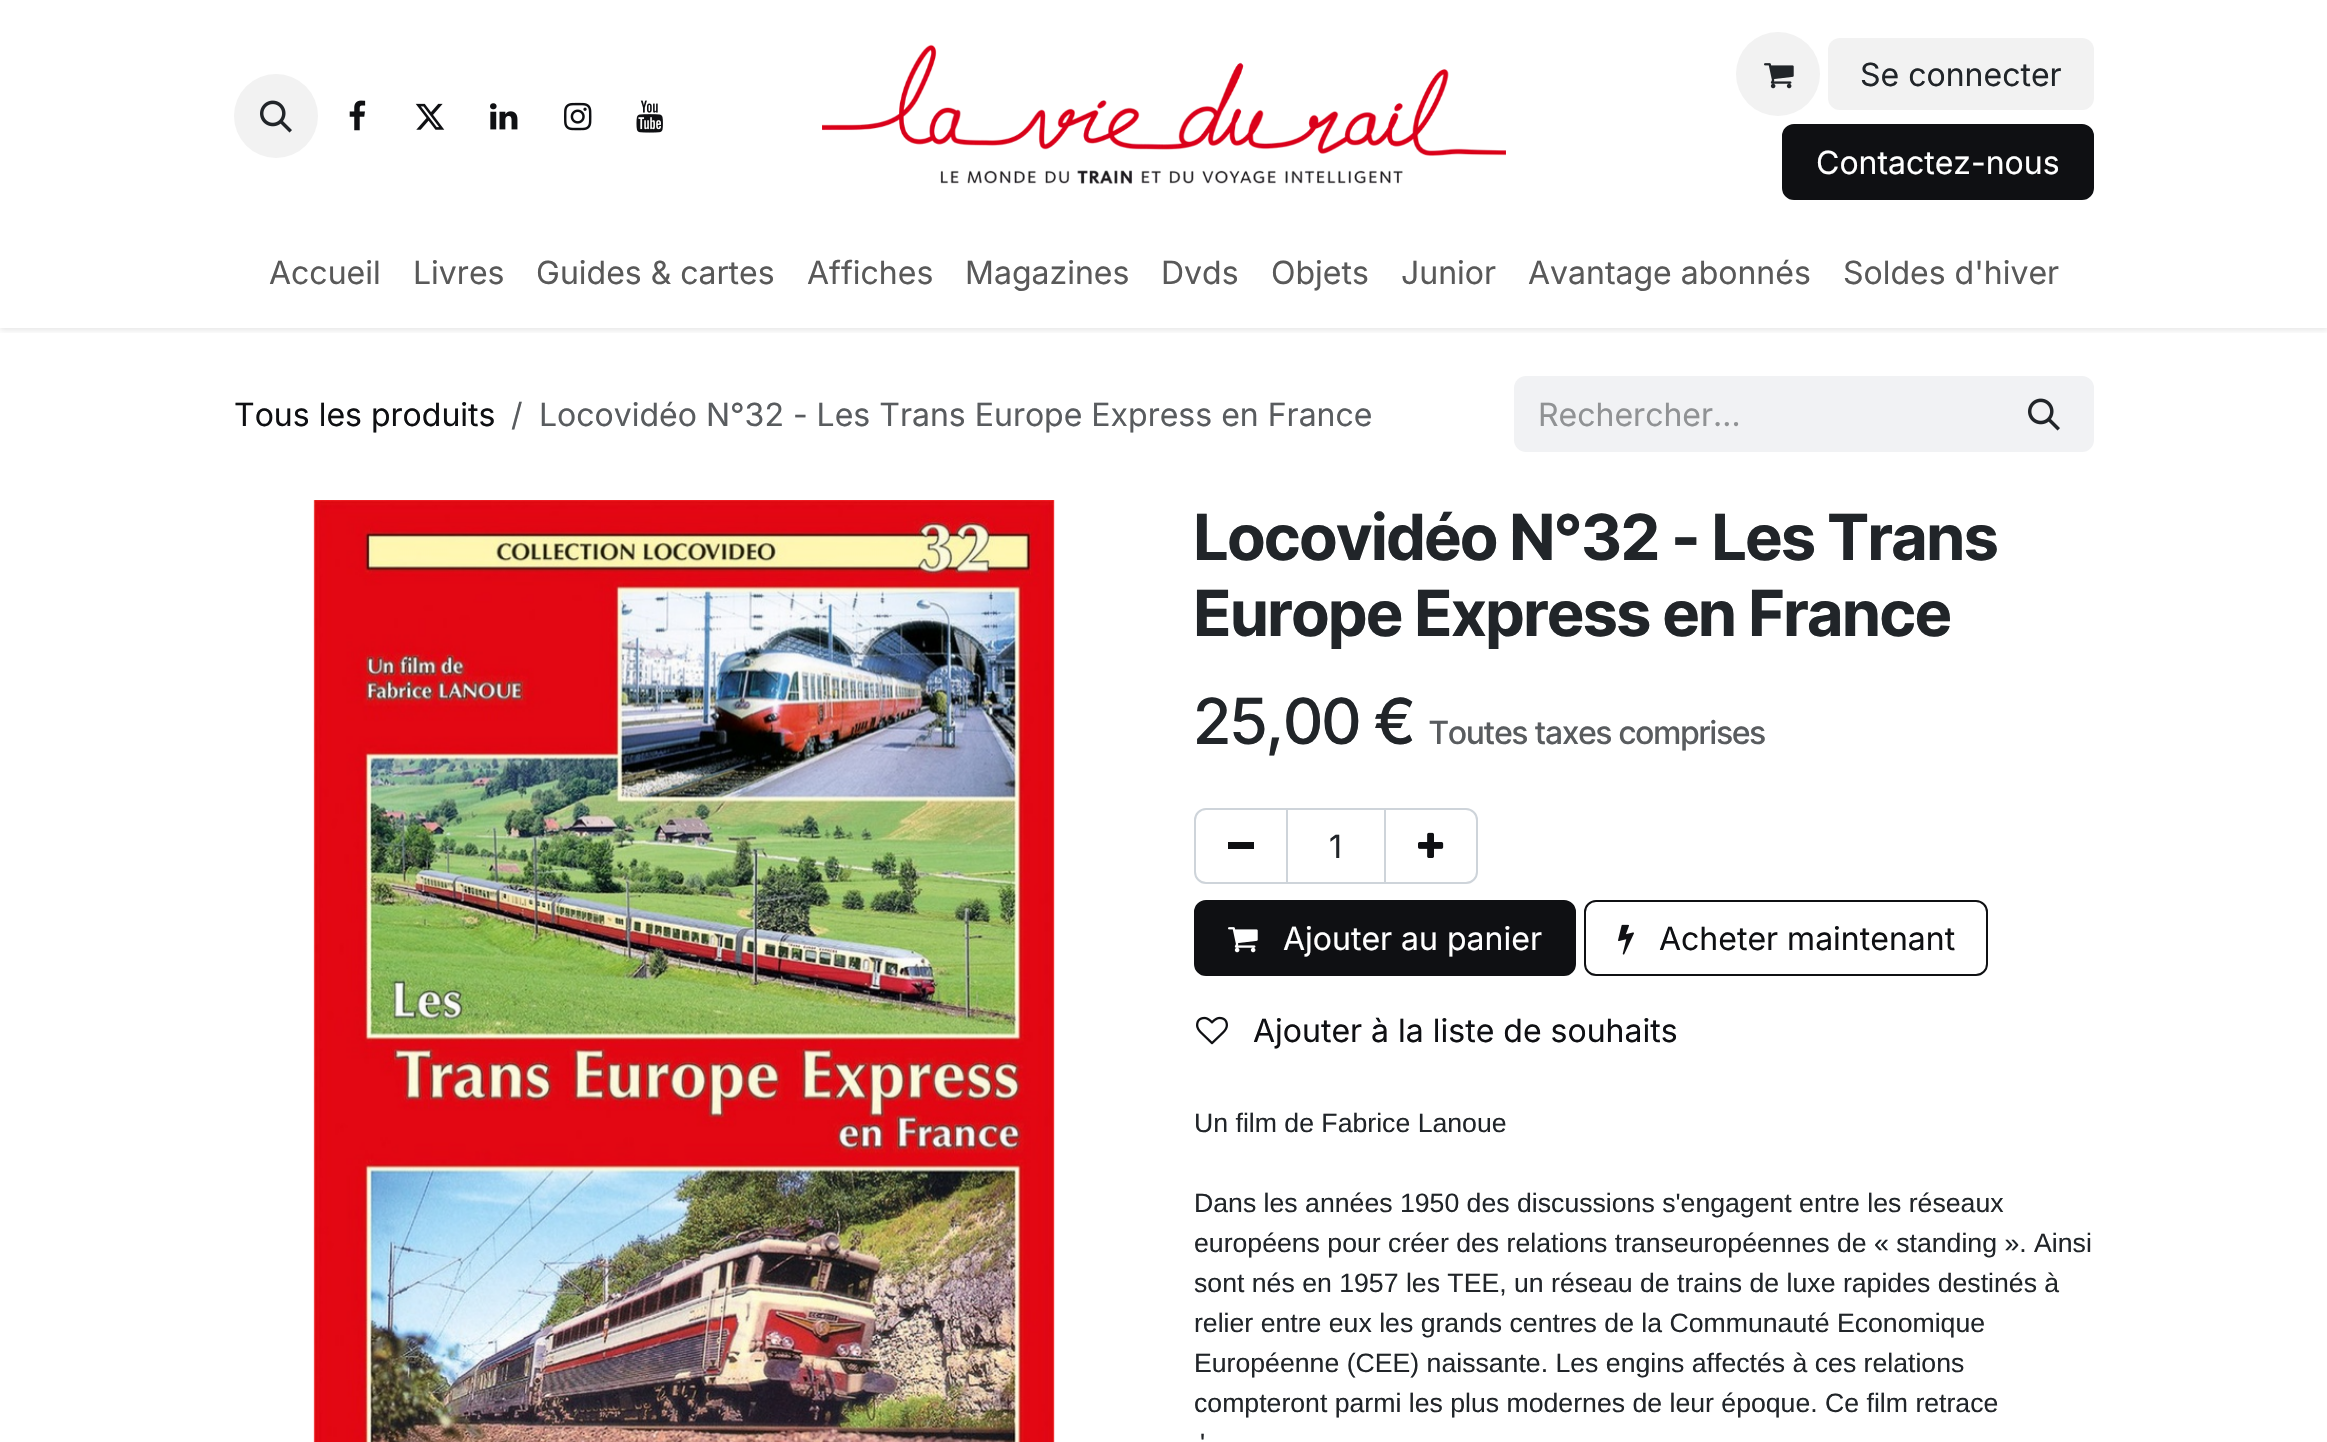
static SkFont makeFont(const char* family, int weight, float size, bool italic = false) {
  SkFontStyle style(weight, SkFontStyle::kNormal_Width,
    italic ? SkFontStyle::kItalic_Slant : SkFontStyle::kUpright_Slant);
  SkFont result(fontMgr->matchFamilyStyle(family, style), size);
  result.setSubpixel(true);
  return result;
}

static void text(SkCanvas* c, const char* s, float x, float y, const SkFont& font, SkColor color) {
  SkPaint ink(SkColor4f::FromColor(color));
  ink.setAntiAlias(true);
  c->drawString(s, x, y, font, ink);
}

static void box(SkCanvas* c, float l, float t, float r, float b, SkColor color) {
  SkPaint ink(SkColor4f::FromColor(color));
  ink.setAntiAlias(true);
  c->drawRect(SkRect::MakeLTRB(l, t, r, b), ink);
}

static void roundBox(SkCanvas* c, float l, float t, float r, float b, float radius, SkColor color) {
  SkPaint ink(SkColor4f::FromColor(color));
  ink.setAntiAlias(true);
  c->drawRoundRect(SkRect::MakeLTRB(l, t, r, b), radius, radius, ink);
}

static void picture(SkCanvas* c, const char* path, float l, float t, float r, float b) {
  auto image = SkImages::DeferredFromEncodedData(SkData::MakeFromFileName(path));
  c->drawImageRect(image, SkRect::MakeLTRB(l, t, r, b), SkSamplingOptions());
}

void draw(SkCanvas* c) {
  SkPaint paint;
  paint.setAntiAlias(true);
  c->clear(0xffffffff);
  c->save();
  c->clipRect(SkRect::MakeLTRB(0, 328, 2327, 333));
  paint.setColor(0x1a000000);
  paint.setMaskFilter(SkMaskFilter::MakeBlur(kNormal_SkBlurStyle, 3));
  c->drawRect(SkRect::MakeLTRB(0, 2, 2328, 330), paint);
  paint.setMaskFilter(nullptr);
  c->restore();
  paint.setColor(0xfff2f2f2);
  c->drawCircle(276, 116, 42, paint);
  picture(c, "img_01.png", 260, 100, 292, 133);
  picture(c, "img_02.png", 349, 100, 366, 131);
  picture(c, "img_03.png", 415, 103, 445, 130);
  picture(c, "img_04.png", 490, 103, 518, 130);
  picture(c, "img_05.png", 564, 102, 592, 131);
  picture(c, "img_06.png", 636, 100, 663, 133);
  picture(c, "img_07.png", 822, 44, 1506, 184);
  c->drawCircle(1778, 74, 42, paint);
  picture(c, "img_08.png", 1764, 63, 1794, 89);
  roundBox(c, 1828, 38, 2094, 110, 12, 0xfff2f2f2);
  SkFont face1 = makeFont("Inter", 400, 32);
  text(c, "Se connecter", 1860, 86, face1, 0xff212529);
  paint.setColor(0xff0f1013);
  c->drawRoundRect(SkRect::MakeLTRB(1783, 125, 2093, 199), 11, 11, paint);
  paint.setStyle(SkPaint::kStroke_Style);
  paint.setStrokeWidth(2);
  c->drawRoundRect(SkRect::MakeLTRB(1783, 125, 2093, 199), 11, 11, paint);
  text(c, "Contactez-nous", 1816, 174, face1, 0xffffffff);
  text(c, "Accueil", 269, 284, face1, 0xff595959);
  text(c, "Livres", 413, 284, face1, 0xff595959);
  text(c, "Guides & cartes", 536, 284, face1, 0xff595959);
  text(c, "Affiches", 807, 284, face1, 0xff595959);
  text(c, "Magazines", 965, 284, face1, 0xff595959);
  text(c, "Dvds", 1161, 284, face1, 0xff595959);
  text(c, "Objets", 1271, 284, face1, 0xff595959);
  text(c, "Junior", 1401, 284, face1, 0xff595959);
  text(c, "Avantage abonnés", 1528, 284, face1, 0xff595959);
  text(c, "Soldes d'hiver", 1843, 284, face1, 0xff595959);
  text(c, "Tous les produits", 234, 426, face1, 0xff0f1013);
  text(c, "/", 511, 426, face1, 0xff595c5f);
  text(c, "Locovidéo N°32 - Les Trans Europe Express en France", 539, 426, face1, 0xff595c5f);
  paint.setStyle(SkPaint::kFill_Style);
  paint.setColor(0xfff1f2f4);
  c->drawPath(SkPathBuilder().moveTo(1526, 376).lineTo(1996, 376).lineTo(1996, 452).lineTo(1526, 452).cubicTo(1519.5f, 452, 1514, 446.5f, 1514, 440).lineTo(1514, 388).cubicTo(1514, 381.5f, 1519.5f, 376, 1526, 376).close().detach(), paint);
  text(c, "Rechercher…", 1538, 426, face1, 0xff909294);
  c->drawPath(SkPathBuilder().moveTo(1995, 377).lineTo(2082, 377).cubicTo(2088, 377, 2093, 382, 2093, 388).lineTo(2093, 440).cubicTo(2093, 446, 2088, 451, 2082, 451).lineTo(1995, 451).close().detach(), paint);
  paint.setStyle(SkPaint::kStroke_Style);
  c->drawPath(SkPathBuilder().moveTo(1995, 377).lineTo(2082, 377).cubicTo(2088, 377, 2093, 382, 2093, 388).lineTo(2093, 440).cubicTo(2093, 446, 2088, 451, 2082, 451).lineTo(1995, 451).close().detach(), paint);
  picture(c, "img_09.png", 2028, 398, 2060, 431);
  picture(c, "img_10.png", 313, 500, 1055, 1442);
  SkFont face2 = makeFont("Inter Tight", 700, 63.4f);
  text(c, "Locovidéo N°32 - Les Trans", 1194, 560, face2, 0xff212529);
  text(c, "Europe Express en France", 1194, 636, face2, 0xff212529);
  SkFont face3 = makeFont("Inter Tight", 500, 63.4f);
  text(c, "25,00 €", 1194, 744, face3, 0xff212529);
  SkFont face4 = makeFont("Inter Tight", 500, 32);
  text(c, "Toutes taxes comprises", 1429, 744, face4, 0xff595c5f);
  paint.setColor(0xffced4da);
  c->drawRect(SkRect::MakeLTRB(1287, 809, 1385, 883), paint);
  c->drawPath(SkPathBuilder().moveTo(1206, 809).lineTo(1287, 809).lineTo(1287, 883).lineTo(1206, 883).cubicTo(1200, 883, 1195, 878, 1195, 872).lineTo(1195, 820).cubicTo(1195, 814, 1200, 809, 1206, 809).close().detach(), paint);
  box(c, 1228, 842, 1254, 849, 0xff0f1013);
  text(c, "1", 1329, 858, face1, 0xff212529);
  c->drawPath(SkPathBuilder().moveTo(1385, 809).lineTo(1466, 809).cubicTo(1472, 809, 1477, 814, 1477, 820).lineTo(1477, 872).cubicTo(1477, 878, 1472, 883, 1466, 883).lineTo(1385, 883).close().detach(), paint);
  picture(c, "img_11.png", 1418, 832, 1444, 858);
  paint.setStyle(SkPaint::kFill_Style);
  paint.setColor(0xff0f1013);
  c->drawRoundRect(SkRect::MakeLTRB(1195, 901, 1575, 975), 11, 11, paint);
  paint.setStyle(SkPaint::kStroke_Style);
  c->drawRoundRect(SkRect::MakeLTRB(1195, 901, 1575, 975), 11, 11, paint);
  picture(c, "img_12.png", 1228, 927, 1258, 953);
  text(c, "Ajouter au panier", 1283, 950, face1, 0xffffffff);
  c->drawRoundRect(SkRect::MakeLTRB(1585, 901, 1987, 975), 11, 11, paint);
  picture(c, "img_13.png", 1618, 924, 1634, 955);
  text(c, "Acheter maintenant", 1659, 950, face1, 0xff0f1013);
  picture(c, "img_14.png", 1196, 1016, 1228, 1045);
  text(c, "Ajouter à la liste de souhaits", 1253, 1042, face1, 0xff0f1013);
  SkFont face5 = makeFont("Liberation Sans", 400, 26.65f);
  text(c, "Un film de Fabrice Lanoue", 1194, 1132, face5, 0xff212529);
  text(c, "Dans les années 1950 des discussions s'engagent entre les réseaux", 1194, 1212, face5, 0xff212529);
  text(c, "européens pour créer des relations transeuropéennes de « standing ». Ainsi", 1194, 1252, face5, 0xff212529);
  text(c, "sont nés en 1957 les TEE, un réseau de trains de luxe rapides destinés à", 1194, 1292, face5, 0xff212529);
  text(c, "relier entre eux les grands centres de la Communauté Economique", 1194, 1332, face5, 0xff212529);
  text(c, "Européenne (CEE) naissante. Les engins affectés à ces relations", 1194, 1372, face5, 0xff212529);
  text(c, "compteront parmi les plus modernes de leur époque. Ce film retrace", 1194, 1412, face5, 0xff212529);
  text(c, "'", 1200, 1452, face5, 0xff212529);
}
